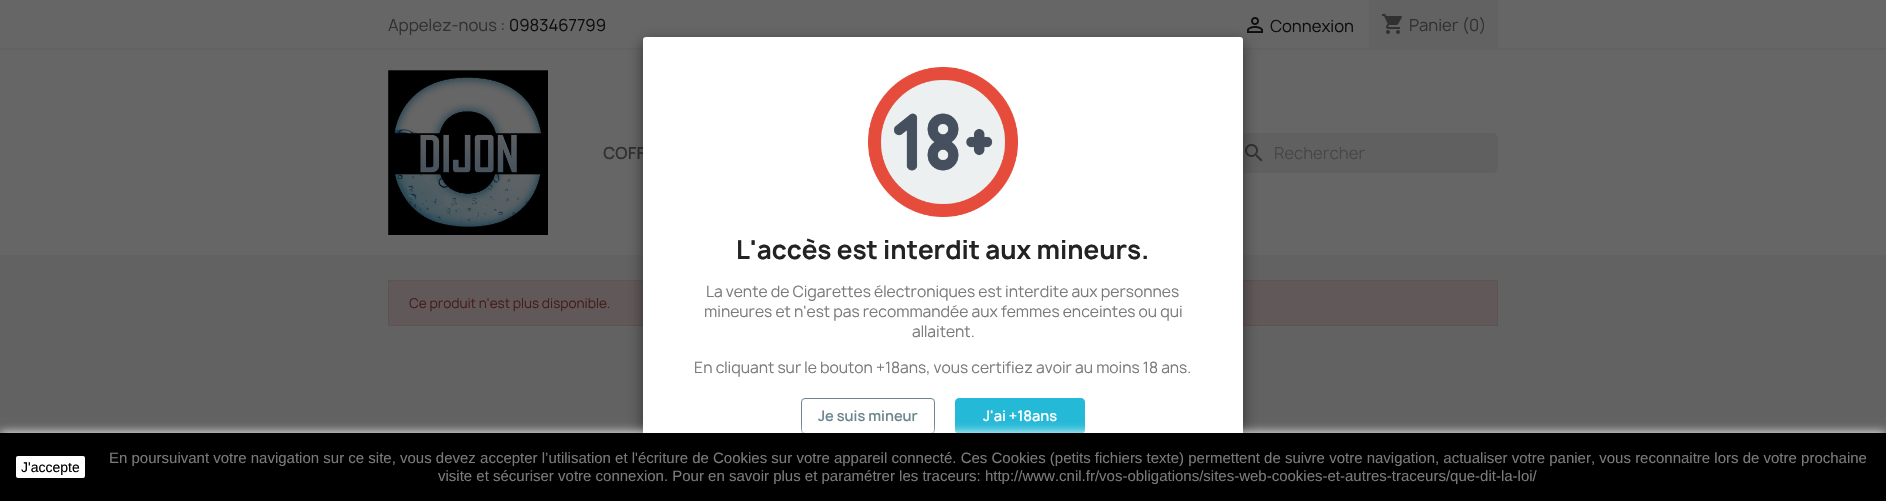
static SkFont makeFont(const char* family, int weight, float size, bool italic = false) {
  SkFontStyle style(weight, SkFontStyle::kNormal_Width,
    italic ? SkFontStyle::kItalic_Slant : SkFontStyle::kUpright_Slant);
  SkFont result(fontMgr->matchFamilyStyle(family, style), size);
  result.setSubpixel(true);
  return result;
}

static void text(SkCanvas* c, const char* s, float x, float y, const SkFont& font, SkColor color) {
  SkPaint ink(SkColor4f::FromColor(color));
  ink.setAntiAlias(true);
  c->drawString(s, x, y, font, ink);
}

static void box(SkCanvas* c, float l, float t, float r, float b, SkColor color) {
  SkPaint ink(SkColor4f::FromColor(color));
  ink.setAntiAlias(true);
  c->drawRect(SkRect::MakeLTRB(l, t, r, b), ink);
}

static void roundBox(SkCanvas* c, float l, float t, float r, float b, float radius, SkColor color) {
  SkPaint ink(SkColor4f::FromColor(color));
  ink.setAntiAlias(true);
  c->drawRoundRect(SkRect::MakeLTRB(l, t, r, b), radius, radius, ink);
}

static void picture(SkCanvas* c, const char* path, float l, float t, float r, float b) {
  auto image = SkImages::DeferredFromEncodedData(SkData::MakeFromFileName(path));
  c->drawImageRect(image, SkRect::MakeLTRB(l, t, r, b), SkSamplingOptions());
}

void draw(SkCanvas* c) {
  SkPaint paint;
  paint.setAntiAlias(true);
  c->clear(0xff666666);
  box(c, 0, 48, 1886, 50, 0xff626262);
  SkFont face1 = makeFont("Manrope", 400, 16);
  text(c, "Appelez-nous :", 388, 31, face1, 0xff313131);
  text(c, "0983467799", 509, 31, face1, 0xff0e0e0e);
  picture(c, "img_01.png", 1247, 17, 1263, 33);
  text(c, "Connexion", 1270, 32, face1, 0xff0e0e0e);
  box(c, 1369, 0, 1498, 48, 0xff626262);
  picture(c, "img_02.png", 1382, 14, 1402, 34);
  text(c, "Panier (0)", 1409, 31, face1, 0xff313131);
  picture(c, "img_03.png", 388, 70, 548, 235);
  SkFont face2 = makeFont("Manrope", 600, 16);
  text(c, "COFF", 603, 159, face2, 0xff313131);
  roundBox(c, 1234, 133, 1498, 173, 5, 0xff606060);
  picture(c, "img_04.png", 1245, 144, 1263, 162);
  text(c, "Rechercher", 1274, 159, face1, 0xff474747);
  box(c, 0, 255, 1886, 433, 0xff626262);
  paint.setColor(0xff615959);
  c->drawRect(SkRect::MakeLTRB(388.5f, 280.5f, 1497.5f, 325.5f), paint);
  paint.setStyle(SkPaint::kStroke_Style);
  paint.setStrokeWidth(1);
  paint.setColor(0xff5e5252);
  c->drawRect(SkRect::MakeLTRB(388.5f, 280.5f, 1497.5f, 325.5f), paint);
  paint.setStyle(SkPaint::kFill_Style);
  paint.setColor(0x80000000);
  paint.setMaskFilter(SkMaskFilter::MakeBlur(kNormal_SkBlurStyle, 7.5f));
  c->drawRoundRect(SkRect::MakeLTRB(643, 42, 1243, 469), 3, 3, paint);
  paint.setMaskFilter(nullptr);
  roundBox(c, 643, 37, 1243, 464, 3, 0xffffffff);
  picture(c, "img_05.png", 868, 67, 1018, 217);
  SkFont face3 = makeFont("Manrope", 700, 25);
  text(c, "L'accès est interdit aux mineurs.", 736, 259, face3, 0xff232323);
  SkFont face4 = makeFont("Manrope", 400, 15);
  text(c, "La vente de Cigarettes électroniques est interdite aux personnes", 706, 297, face4, 0xff7a7a7a);
  text(c, "mineures et n'est pas recommandée aux femmes enceintes ou qui", 704, 317, face4, 0xff7a7a7a);
  text(c, "allaitent.", 912, 337, face4, 0xff7a7a7a);
  text(c, "En cliquant sur le bouton +18ans, vous certifiez avoir au moins 18 ans.", 694, 373, face4, 0xff7a7a7a);
  paint.setStyle(SkPaint::kStroke_Style);
  paint.setColor(0xff6c868e);
  c->drawRoundRect(SkRect::MakeLTRB(801.5f, 398.5f, 934.5f, 433.5f), 3.5f, 3.5f, paint);
  SkFont face5 = makeFont("Manrope", 600, 14);
  text(c, "Je suis mineur", 818, 421, face5, 0xff6c868e);
  paint.setStyle(SkPaint::kFill_Style);
  paint.setColor(0xff24b9d7);
  c->drawRoundRect(SkRect::MakeLTRB(955.5f, 398.5f, 1084.5f, 433.5f), 3.5f, 3.5f, paint);
  paint.setStyle(SkPaint::kStroke_Style);
  c->drawRoundRect(SkRect::MakeLTRB(955.5f, 398.5f, 1084.5f, 433.5f), 3.5f, 3.5f, paint);
  text(c, "J'ai +18ans", 983, 421, face5, 0xffffffff);
  paint.setStyle(SkPaint::kFill_Style);
  paint.setColor(0xffffffff);
  paint.setMaskFilter(SkMaskFilter::MakeBlur(kNormal_SkBlurStyle, 5));
  c->drawRect(SkRect::MakeLTRB(0, 433, 1886, 501), paint);
  paint.setMaskFilter(nullptr);
  box(c, 0, 433, 1886, 501, 0xff000000);
  roundBox(c, 16, 456, 85, 478, 2, 0xffffffff);
  SkFont face6 = makeFont("Liberation Sans", 400, 14);
  text(c, "J'accepte", 21, 472, face6, 0xff000000);
  SkFont face7 = makeFont("Liberation Sans", 400, 15);
  text(c, "En poursuivant votre navigation sur ce site, vous devez accepter l’utilisation et l'écriture de Cookies sur votre appareil connecté. Ces Cookies (petits fichiers texte) permettent de suivre votre navigation, actualiser votre panier, vous reconnaitre lors de votre prochaine", 109, 463, face7, 0xff7a7a7a);
  text(c, "visite et sécuriser votre connexion. Pour en savoir plus et paramétrer les traceurs: http://www.cnil.fr/vos-obligations/sites-web-cookies-et-autres-traceurs/que-dit-la-loi/", 438, 481, face7, 0xff7a7a7a);
  SkFont face8 = makeFont("Manrope", 400, 13);
  text(c, "Ce produit n'est plus disponible.", 409, 308, face8, 0xff441b1a);
}
